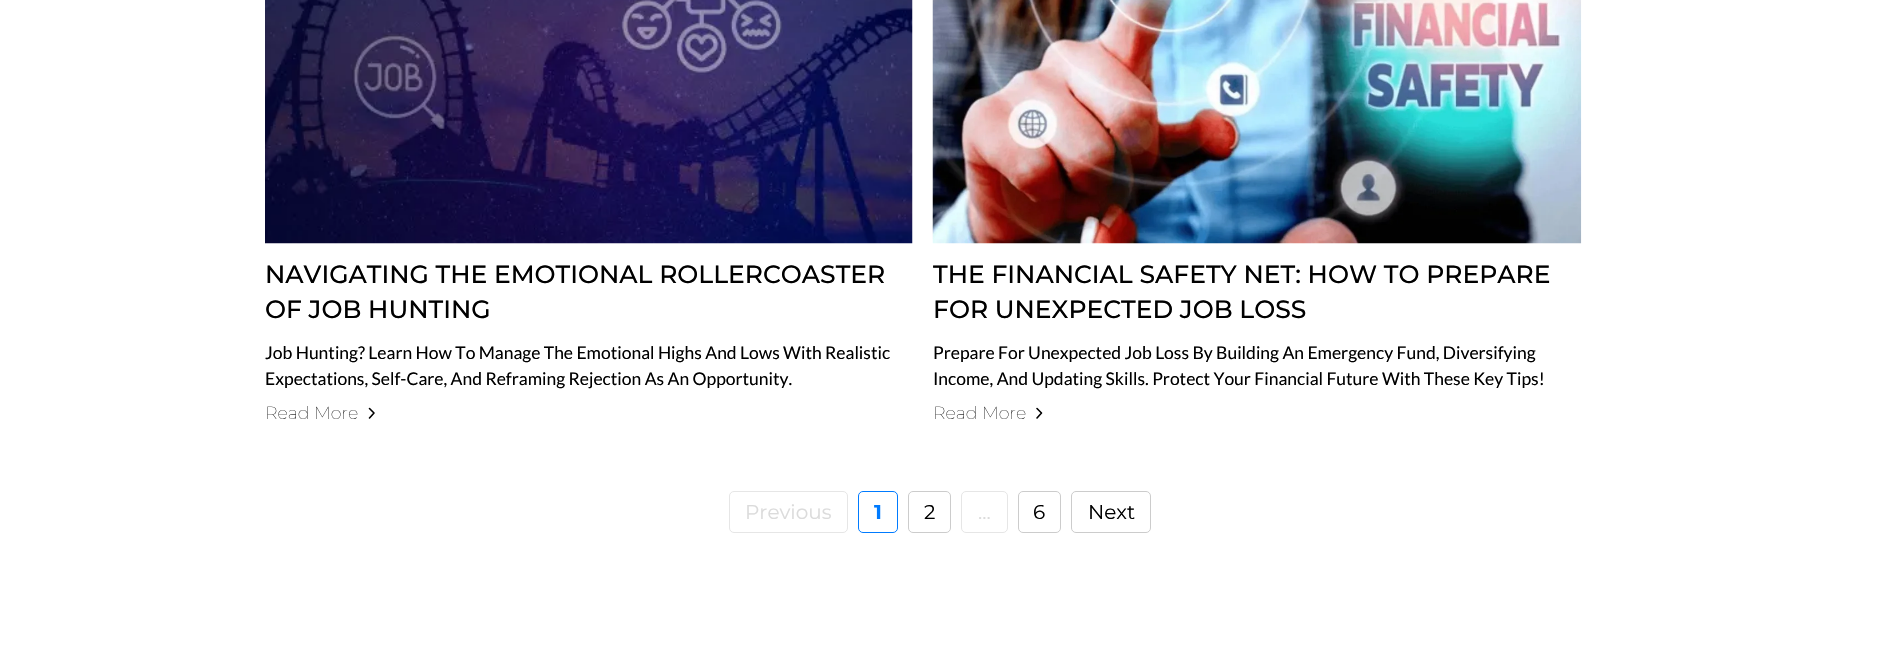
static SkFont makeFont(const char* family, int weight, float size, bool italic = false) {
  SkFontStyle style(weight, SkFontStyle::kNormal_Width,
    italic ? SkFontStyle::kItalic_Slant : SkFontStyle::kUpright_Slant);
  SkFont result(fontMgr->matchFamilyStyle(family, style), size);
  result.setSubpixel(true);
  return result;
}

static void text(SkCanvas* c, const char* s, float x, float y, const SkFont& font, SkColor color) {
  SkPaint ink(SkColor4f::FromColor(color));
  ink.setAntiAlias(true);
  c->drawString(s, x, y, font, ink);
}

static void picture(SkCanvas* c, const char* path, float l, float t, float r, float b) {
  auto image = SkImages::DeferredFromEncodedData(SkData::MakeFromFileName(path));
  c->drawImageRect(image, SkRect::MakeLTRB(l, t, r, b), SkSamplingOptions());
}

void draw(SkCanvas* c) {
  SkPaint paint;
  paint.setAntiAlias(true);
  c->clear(0xffffffff);
  picture(c, "img_01.png", 265, 0, 913, 244);
  SkFont face1 = makeFont("Montserrat", 500, 25);
  text(c, "NAVIGATING THE EMOTIONAL ROLLERCOASTER", 265, 283, face1, 0xff000000);
  text(c, "OF JOB HUNTING", 265, 318, face1, 0xff000000);
  SkFont face2 = makeFont("Lato", 400, 17.5f);
  text(c, "Job Hunting? Learn How To Manage The Emotional Highs And Lows With Realistic", 265, 359, face2, 0xff000000);
  text(c, "Expectations, Self-Care, And Reframing Rejection As An Opportunity.", 265, 385, face2, 0xff000000);
  SkFont face3 = makeFont("Montserrat", 100, 17.5f);
  text(c, "Read More", 265, 419, face3, 0xff000000);
  paint.setStyle(SkPaint::kStroke_Style);
  paint.setStrokeWidth(1.6f);
  paint.setStrokeCap(SkPaint::kRound_Cap);
  paint.setStrokeJoin(SkPaint::kRound_Join);
  paint.setColor(0xff000000);
  c->drawPath(SkPathBuilder().moveTo(369.5f, 418).lineTo(374, 413).lineTo(369.5f, 408.5f).detach(), paint);
  picture(c, "img_02.png", 932, 0, 1582, 244);
  text(c, "THE FINANCIAL SAFETY NET: HOW TO PREPARE", 933, 283, face1, 0xff000000);
  text(c, "FOR UNEXPECTED JOB LOSS", 933, 318, face1, 0xff000000);
  text(c, "Prepare For Unexpected Job Loss By Building An Emergency Fund, Diversifying", 933, 359, face2, 0xff000000);
  text(c, "Income, And Updating Skills. Protect Your Financial Future With These Key Tips!", 933, 385, face2, 0xff000000);
  text(c, "Read More", 933, 419, face3, 0xff000000);
  c->drawPath(SkPathBuilder().moveTo(1037, 418).lineTo(1041.5f, 413).lineTo(1037, 408.5f).detach(), paint);
  paint.setStrokeWidth(1);
  paint.setStrokeCap(SkPaint::kButt_Cap);
  paint.setStrokeJoin(SkPaint::kMiter_Join);
  paint.setColor(0xffe6e6e6);
  c->drawRoundRect(SkRect::MakeLTRB(729.5f, 491.5f, 847.5f, 532.5f), 4.5f, 4.5f, paint);
  SkFont face4 = makeFont("Montserrat", 400, 20);
  text(c, "Previous", 745, 519, face4, 0xffdbdbdb);
  paint.setColor(0xff007bff);
  c->drawRoundRect(SkRect::MakeLTRB(858.5f, 491.5f, 897.5f, 532.5f), 4.5f, 4.5f, paint);
  SkFont face5 = makeFont("Montserrat", 700, 20);
  text(c, "1", 874, 519, face5, 0xff007bff);
  paint.setColor(0xffcccccc);
  c->drawRoundRect(SkRect::MakeLTRB(908.5f, 491.5f, 950.5f, 532.5f), 4.5f, 4.5f, paint);
  text(c, "2", 924, 519, face4, 0xff000000);
  paint.setColor(0xffe6e6e6);
  c->drawRoundRect(SkRect::MakeLTRB(961.5f, 491.5f, 1007.5f, 532.5f), 4.5f, 4.5f, paint);
  text(c, "...", 978, 519, face4, 0xffdbdbdb);
  paint.setColor(0xffcccccc);
  c->drawRoundRect(SkRect::MakeLTRB(1018.5f, 491.5f, 1060.5f, 532.5f), 4.5f, 4.5f, paint);
  text(c, "6", 1033, 519, face4, 0xff000000);
  c->drawRoundRect(SkRect::MakeLTRB(1071.5f, 491.5f, 1150.5f, 532.5f), 4.5f, 4.5f, paint);
  text(c, "Next", 1088, 519, face4, 0xff000000);
}
